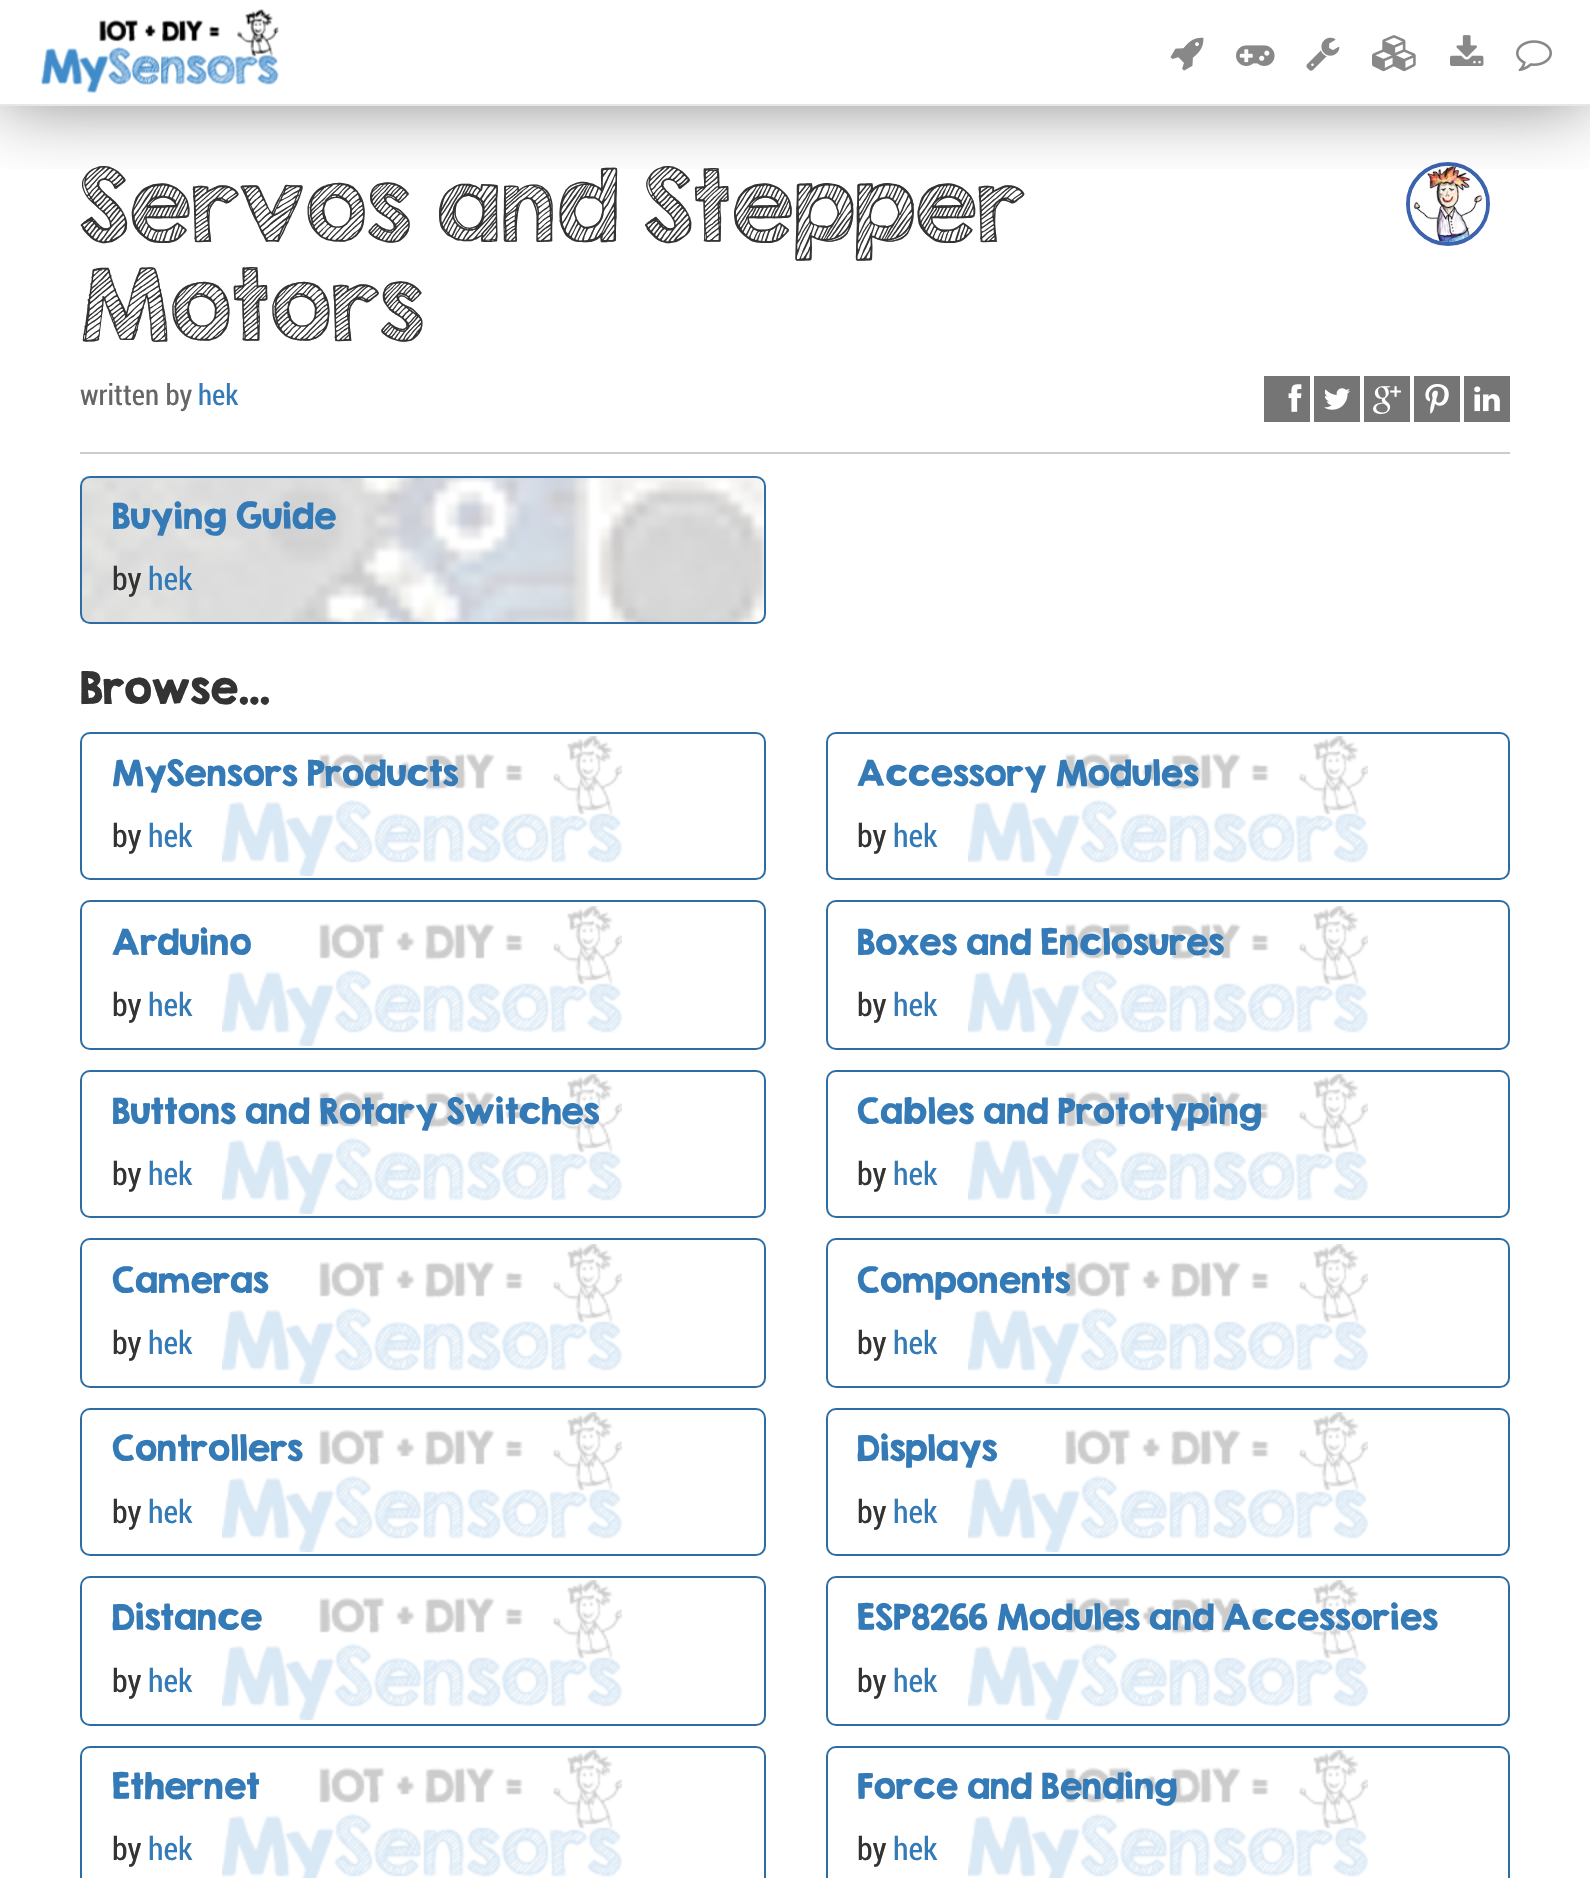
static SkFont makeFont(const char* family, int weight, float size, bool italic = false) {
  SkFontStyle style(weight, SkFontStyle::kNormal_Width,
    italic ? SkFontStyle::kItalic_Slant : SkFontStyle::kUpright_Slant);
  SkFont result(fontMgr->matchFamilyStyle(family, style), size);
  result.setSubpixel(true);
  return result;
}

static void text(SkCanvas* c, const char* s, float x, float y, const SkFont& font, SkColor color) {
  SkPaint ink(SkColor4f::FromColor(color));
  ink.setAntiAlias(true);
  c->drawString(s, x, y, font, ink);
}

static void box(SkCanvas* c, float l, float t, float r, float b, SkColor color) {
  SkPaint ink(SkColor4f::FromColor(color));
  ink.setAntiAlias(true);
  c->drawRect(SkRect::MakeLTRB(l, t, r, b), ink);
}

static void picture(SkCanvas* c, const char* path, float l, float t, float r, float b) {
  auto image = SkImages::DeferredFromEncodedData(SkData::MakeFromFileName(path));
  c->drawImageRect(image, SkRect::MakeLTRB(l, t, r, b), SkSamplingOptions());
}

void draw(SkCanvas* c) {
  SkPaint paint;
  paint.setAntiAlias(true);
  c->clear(0xffffffff);
  paint.setStyle(SkPaint::kStroke_Style);
  paint.setStrokeWidth(4);
  paint.setColor(0xff3c63ae);
  c->drawCircle(1448, 204, 40, paint);
  picture(c, "img_08.png", 1410, 166, 1486, 242);
  c->save();
  c->clipRect(SkRect::MakeLTRB(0, 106, 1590, 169));
  paint.setStyle(SkPaint::kFill_Style);
  paint.setColor(0x80000000);
  paint.setMaskFilter(SkMaskFilter::MakeBlur(kNormal_SkBlurStyle, 38));
  c->drawRect(SkRect::MakeLTRB(0, -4, 1590, 102), paint);
  paint.setMaskFilter(nullptr);
  c->restore();
  box(c, 0, 104, 1590, 106, 0xffe7e7e7);
  picture(c, "img_01.png", 41, 9, 279, 93);
  picture(c, "img_02.png", 1170, 37, 1204, 71);
  picture(c, "img_03.png", 1236, 45, 1275, 66);
  picture(c, "img_04.png", 1306, 37, 1340, 71);
  picture(c, "img_05.png", 1372, 35, 1416, 72);
  picture(c, "img_06.png", 1450, 35, 1484, 66);
  picture(c, "img_07.png", 1516, 40, 1552, 72);
  SkFont face1 = makeFont("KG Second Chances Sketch", 400, 89.6f);
  text(c, "Servos and Stepper", 80, 242, face1, 0xff333333);
  text(c, "Motors", 80, 341, face1, 0xff333333);
  SkFont face2 = makeFont("Roboto Condensed", 400, 29);
  text(c, "written by", 80, 405, face2, 0xff666666);
  text(c, "hek", 198, 405, face2, 0xff337ab7);
  box(c, 1264, 376, 1310, 422, 0xff757575);
  picture(c, "img_09.png", 1288, 384, 1302, 412);
  box(c, 1314, 376, 1360, 422, 0xff757575);
  picture(c, "img_10.png", 1324, 388, 1350, 410);
  box(c, 1364, 376, 1410, 422, 0xff757575);
  picture(c, "img_11.png", 1373, 386, 1401, 414);
  box(c, 1414, 376, 1460, 422, 0xff757575);
  picture(c, "img_12.png", 1425, 384, 1449, 414);
  box(c, 1464, 376, 1510, 422, 0xff757575);
  picture(c, "img_13.png", 1474, 386, 1500, 412);
  box(c, 80, 452, 1510, 454, 0xffcccccc);
  picture(c, "img_14.png", 82, 478, 764, 622);
  paint.setStyle(SkPaint::kStroke_Style);
  paint.setStrokeWidth(2);
  paint.setColor(0xff2e6da4);
  c->drawRoundRect(SkRect::MakeLTRB(81, 477, 765, 623), 9, 9, paint);
  SkFont face3 = makeFont("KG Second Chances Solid", 400, 32);
  text(c, "Buying Guide", 112, 529, face3, 0xff337ab7);
  SkFont face4 = makeFont("Roboto Condensed", 400, 32);
  text(c, "by", 112, 590, face4, 0xff333333);
  text(c, "hek", 148, 590, face4, 0xff337ab7);
  SkFont face5 = makeFont("KG Second Chances Solid", 400, 40);
  text(c, "Browse...", 80, 704, face5, 0xff333333);
  picture(c, "img_15.png", 222, 736, 622, 876);
  c->drawRoundRect(SkRect::MakeLTRB(81, 733, 765, 879), 9, 9, paint);
  text(c, "MySensors Products", 112, 786, face3, 0xff337ab7);
  text(c, "by", 112, 847, face4, 0xff333333);
  text(c, "hek", 148, 847, face4, 0xff337ab7);
  picture(c, "img_15.png", 968, 736, 1368, 876);
  c->drawRoundRect(SkRect::MakeLTRB(827, 733, 1509, 879), 9, 9, paint);
  text(c, "Accessory Modules", 857, 786, face3, 0xff337ab7);
  text(c, "by", 857, 847, face4, 0xff333333);
  text(c, "hek", 893, 847, face4, 0xff337ab7);
  picture(c, "img_15.png", 222, 906, 622, 1046);
  c->drawRoundRect(SkRect::MakeLTRB(81, 901, 765, 1049), 9, 9, paint);
  text(c, "Arduino", 112, 955, face3, 0xff337ab7);
  text(c, "by", 112, 1016, face4, 0xff333333);
  text(c, "hek", 148, 1016, face4, 0xff337ab7);
  picture(c, "img_15.png", 968, 906, 1368, 1046);
  c->drawRoundRect(SkRect::MakeLTRB(827, 901, 1509, 1049), 9, 9, paint);
  text(c, "Boxes and Enclosures", 857, 955, face3, 0xff337ab7);
  text(c, "by", 857, 1016, face4, 0xff333333);
  text(c, "hek", 893, 1016, face4, 0xff337ab7);
  picture(c, "img_15.png", 222, 1074, 622, 1214);
  c->drawRoundRect(SkRect::MakeLTRB(81, 1071, 765, 1217), 9, 9, paint);
  text(c, "Buttons and Rotary Switches", 112, 1124, face3, 0xff337ab7);
  text(c, "by", 112, 1185, face4, 0xff333333);
  text(c, "hek", 148, 1185, face4, 0xff337ab7);
  picture(c, "img_15.png", 968, 1074, 1368, 1214);
  c->drawRoundRect(SkRect::MakeLTRB(827, 1071, 1509, 1217), 9, 9, paint);
  text(c, "Cables and Prototyping", 857, 1124, face3, 0xff337ab7);
  text(c, "by", 857, 1185, face4, 0xff333333);
  text(c, "hek", 893, 1185, face4, 0xff337ab7);
  picture(c, "img_15.png", 222, 1244, 622, 1384);
  c->drawRoundRect(SkRect::MakeLTRB(81, 1239, 765, 1387), 9, 9, paint);
  text(c, "Cameras", 112, 1293, face3, 0xff337ab7);
  text(c, "by", 112, 1354, face4, 0xff333333);
  text(c, "hek", 148, 1354, face4, 0xff337ab7);
  picture(c, "img_15.png", 968, 1244, 1368, 1384);
  c->drawRoundRect(SkRect::MakeLTRB(827, 1239, 1509, 1387), 9, 9, paint);
  text(c, "Components", 857, 1293, face3, 0xff337ab7);
  text(c, "by", 857, 1354, face4, 0xff333333);
  text(c, "hek", 893, 1354, face4, 0xff337ab7);
  picture(c, "img_15.png", 222, 1412, 622, 1552);
  c->drawRoundRect(SkRect::MakeLTRB(81, 1409, 765, 1555), 9, 9, paint);
  text(c, "Controllers", 112, 1461, face3, 0xff337ab7);
  text(c, "by", 112, 1523, face4, 0xff333333);
  text(c, "hek", 148, 1523, face4, 0xff337ab7);
  picture(c, "img_15.png", 968, 1412, 1368, 1552);
  c->drawRoundRect(SkRect::MakeLTRB(827, 1409, 1509, 1555), 9, 9, paint);
  text(c, "Displays", 857, 1461, face3, 0xff337ab7);
  text(c, "by", 857, 1523, face4, 0xff333333);
  text(c, "hek", 893, 1523, face4, 0xff337ab7);
  picture(c, "img_15.png", 222, 1580, 622, 1720);
  c->drawRoundRect(SkRect::MakeLTRB(81, 1577, 765, 1725), 9, 9, paint);
  text(c, "Distance", 112, 1630, face3, 0xff337ab7);
  text(c, "by", 112, 1692, face4, 0xff333333);
  text(c, "hek", 148, 1692, face4, 0xff337ab7);
  picture(c, "img_15.png", 968, 1580, 1368, 1720);
  c->drawRoundRect(SkRect::MakeLTRB(827, 1577, 1509, 1725), 9, 9, paint);
  text(c, "ESP8266 Modules and Accessories", 857, 1630, face3, 0xff337ab7);
  text(c, "by", 857, 1692, face4, 0xff333333);
  text(c, "hek", 893, 1692, face4, 0xff337ab7);
  picture(c, "img_16.png", 222, 1750, 622, 1878);
  c->drawRoundRect(SkRect::MakeLTRB(81, 1747, 765, 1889), 9, 9, paint);
  text(c, "Ethernet", 112, 1799, face3, 0xff337ab7);
  text(c, "by", 112, 1860, face4, 0xff333333);
  text(c, "hek", 148, 1860, face4, 0xff337ab7);
  picture(c, "img_16.png", 968, 1750, 1368, 1878);
  c->drawRoundRect(SkRect::MakeLTRB(827, 1747, 1509, 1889), 9, 9, paint);
  text(c, "Force and Bending", 857, 1799, face3, 0xff337ab7);
  text(c, "by", 857, 1860, face4, 0xff333333);
  text(c, "hek", 893, 1860, face4, 0xff337ab7);
}
